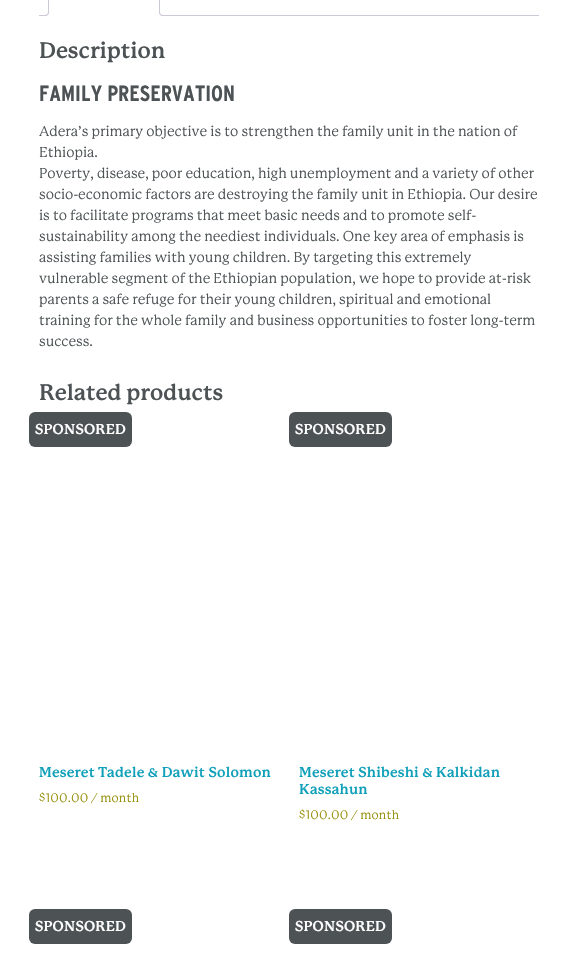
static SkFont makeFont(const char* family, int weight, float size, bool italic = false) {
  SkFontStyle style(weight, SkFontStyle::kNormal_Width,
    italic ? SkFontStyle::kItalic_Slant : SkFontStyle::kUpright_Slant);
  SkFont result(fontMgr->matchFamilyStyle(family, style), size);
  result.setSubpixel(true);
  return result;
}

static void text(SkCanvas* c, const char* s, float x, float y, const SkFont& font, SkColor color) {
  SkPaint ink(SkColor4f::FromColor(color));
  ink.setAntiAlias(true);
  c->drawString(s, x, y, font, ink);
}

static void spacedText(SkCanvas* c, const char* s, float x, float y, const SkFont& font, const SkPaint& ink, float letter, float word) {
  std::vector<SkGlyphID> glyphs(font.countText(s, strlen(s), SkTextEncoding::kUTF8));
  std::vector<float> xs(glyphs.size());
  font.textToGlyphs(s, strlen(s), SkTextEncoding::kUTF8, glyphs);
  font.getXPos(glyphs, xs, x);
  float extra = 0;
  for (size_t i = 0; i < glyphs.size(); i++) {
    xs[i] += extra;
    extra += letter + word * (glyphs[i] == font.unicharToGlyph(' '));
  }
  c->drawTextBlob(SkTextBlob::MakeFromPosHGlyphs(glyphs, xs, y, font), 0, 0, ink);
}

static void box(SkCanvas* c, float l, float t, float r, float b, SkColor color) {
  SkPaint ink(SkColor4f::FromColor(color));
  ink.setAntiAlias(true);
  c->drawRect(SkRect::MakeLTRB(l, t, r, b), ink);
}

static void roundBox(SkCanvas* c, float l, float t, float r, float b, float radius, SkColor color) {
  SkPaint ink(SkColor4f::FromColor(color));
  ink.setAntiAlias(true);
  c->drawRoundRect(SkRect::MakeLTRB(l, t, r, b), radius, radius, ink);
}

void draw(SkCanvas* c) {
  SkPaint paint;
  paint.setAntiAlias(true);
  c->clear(0xffffffff);
  box(c, 39, 15, 539, 16, 0xffcfc8d8);
  paint.setColor(0xffcfc8d8);
  c->drawPath(SkPathBuilder().moveTo(160, 16).lineTo(160, -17).cubicTo(160, -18, 159.5f, -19, 159, -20).lineTo(158, -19).cubicTo(159, -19, 159, -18, 159, -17).lineTo(159, 15).close().detach(), paint);
  paint.setColor(0xffffffff);
  c->drawPath(SkPathBuilder().moveTo(160, 16).lineTo(159, 15).lineTo(49, 15).lineTo(48, 16).close().detach(), paint);
  paint.setColor(0xffcfc8d8);
  c->drawPath(SkPathBuilder().moveTo(48, 16).lineTo(49, 15).lineTo(49, -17).cubicTo(49, -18, 49, -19, 50, -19).lineTo(49, -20).cubicTo(48.5f, -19, 48, -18, 48, -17).close().detach(), paint);
  c->save();
  c->clipRect(SkRect::MakeLTRB(39, 0, 539, 16));
  paint.setColor(0xffffffff);
  c->drawPath(SkPathBuilder().moveTo(46, 16).lineTo(46, 18).cubicTo(49.5f, 18, 51, 16.5f, 51, 13).lineTo(49, 13).cubicTo(48.5f, 14.5f, 47.5f, 15.5f, 46, 16).close().detach(), paint);
  c->restore();
  paint.setColor(0xffcfc8d8);
  c->drawPath(SkPathBuilder(SkPathFillType::kEvenOdd).moveTo(44, 11).lineTo(49, 11).cubicTo(49, 14.5f, 47.5f, 16, 44, 16).close().moveTo(44, 11).lineTo(48, 11).cubicTo(48, 14, 47, 15, 44, 15).close().detach(), paint);
  c->save();
  c->clipRect(SkRect::MakeLTRB(39, 0, 539, 16));
  paint.setColor(0xffffffff);
  c->drawPath(SkPathBuilder().moveTo(157, 13).cubicTo(157, 16.5f, 158.5f, 18, 162, 18).lineTo(162, 16).cubicTo(160.5f, 15.5f, 159.5f, 14.5f, 159, 13).close().detach(), paint);
  c->restore();
  paint.setColor(0xffcfc8d8);
  c->drawPath(SkPathBuilder(SkPathFillType::kEvenOdd).moveTo(159, 11).lineTo(164, 11).lineTo(164, 16).cubicTo(161.5f, 16, 159, 15, 159, 12).close().moveTo(160, 11).lineTo(164, 11).lineTo(164, 15).cubicTo(162, 15, 160, 14.5f, 160, 12).close().detach(), paint);
  SkFont face1 = makeFont("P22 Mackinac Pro", 700, 22);
  text(c, "Description", 39, 58, face1, 0xff4d5355);
  SkFont face2 = makeFont("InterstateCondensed", 700, 22);
  text(c, "FAMILY PRESERVATION", 39, 101, face2, 0xff4d5355);
  SkFont face3 = makeFont("P22 Mackinac Pro", 400, 14);
  text(c, "Adera’s primary objective is to strengthen the family unit in the nation of", 39, 136, face3, 0xff4d5355);
  text(c, "Ethiopia.", 39, 157, face3, 0xff4d5355);
  text(c, "Poverty, disease, poor education, high unemployment and a variety of other", 39, 178, face3, 0xff4d5355);
  text(c, "socio-economic factors are destroying the family unit in Ethiopia. Our desire", 39, 199, face3, 0xff4d5355);
  text(c, "is to facilitate programs that meet basic needs and to promote self-", 39, 220, face3, 0xff4d5355);
  text(c, "sustainability among the neediest individuals. One key area of emphasis is", 39, 241, face3, 0xff4d5355);
  text(c, "assisting families with young children. By targeting this extremely", 39, 262, face3, 0xff4d5355);
  text(c, "vulnerable segment of the Ethiopian population, we hope to provide at-risk", 39, 283, face3, 0xff4d5355);
  text(c, "parents a safe refuge for their young children, spiritual and emotional", 39, 304, face3, 0xff4d5355);
  text(c, "training for the whole family and business opportunities to foster long-term", 39, 325, face3, 0xff4d5355);
  text(c, "success.", 39, 346, face3, 0xff4d5355);
  text(c, "Related products", 39, 400, face1, 0xff4d5355);
  roundBox(c, 29, 412, 132, 447, 6, 0xff4d5355);
  SkFont face4 = makeFont("P22 Mackinac Pro", 700, 14);
  paint.setColor(0xffffffff);
  spacedText(c, "SPONSORED", 35, 434, face4, paint, 0.2f, 0);
  paint.setColor(0xff10a0b9);
  spacedText(c, "Meseret Tadele & Dawit Solomon", 39, 777, face4, paint, 0.2f, 0);
  SkFont face5 = makeFont("P22 Mackinac Pro", 400, 12);
  paint.setColor(0xff958e09);
  spacedText(c, "$100.00 / month", 39, 802, face5, paint, 0.2f, 0);
  roundBox(c, 289, 412, 392, 447, 6, 0xff4d5355);
  paint.setColor(0xffffffff);
  spacedText(c, "SPONSORED", 295, 434, face4, paint, 0.2f, 0);
  paint.setColor(0xff10a0b9);
  spacedText(c, "Meseret Shibeshi & Kalkidan", 299, 777, face4, paint, 0.2f, 0);
  spacedText(c, "Kassahun", 299, 794, face4, paint, 0.2f, 0);
  paint.setColor(0xff958e09);
  spacedText(c, "$100.00 / month", 299, 819, face5, paint, 0.2f, 0);
  roundBox(c, 29, 909, 132, 944, 6, 0xff4d5355);
  paint.setColor(0xffffffff);
  spacedText(c, "SPONSORED", 35, 931, face4, paint, 0.2f, 0);
  roundBox(c, 289, 909, 392, 944, 6, 0xff4d5355);
  spacedText(c, "SPONSORED", 295, 931, face4, paint, 0.2f, 0);
}
